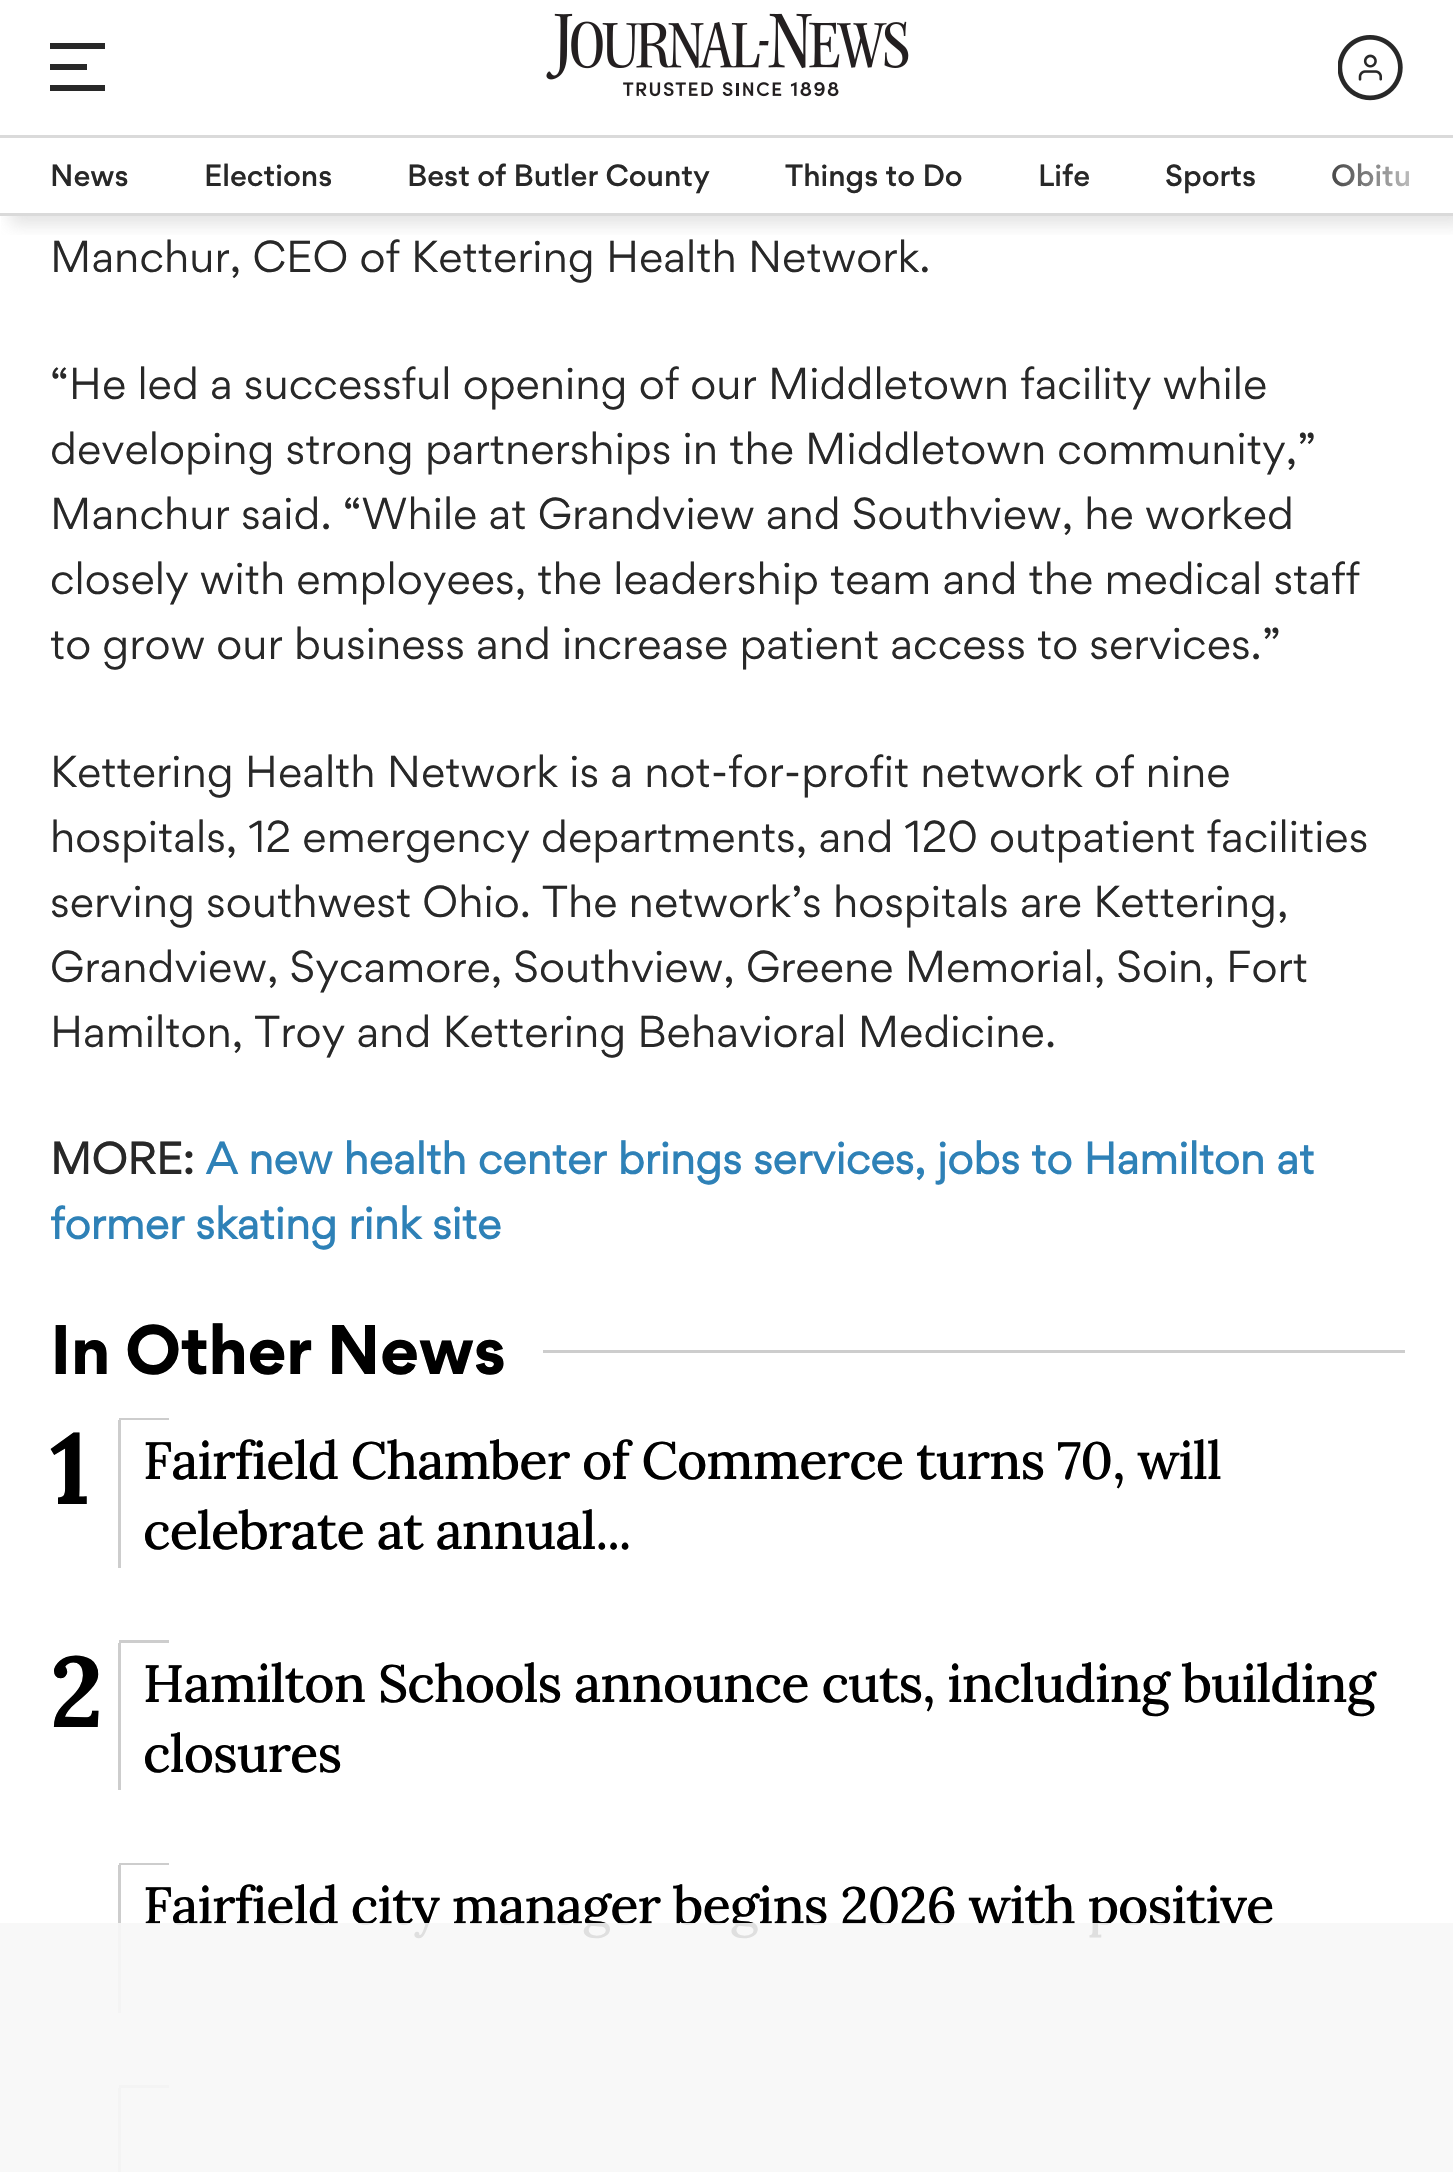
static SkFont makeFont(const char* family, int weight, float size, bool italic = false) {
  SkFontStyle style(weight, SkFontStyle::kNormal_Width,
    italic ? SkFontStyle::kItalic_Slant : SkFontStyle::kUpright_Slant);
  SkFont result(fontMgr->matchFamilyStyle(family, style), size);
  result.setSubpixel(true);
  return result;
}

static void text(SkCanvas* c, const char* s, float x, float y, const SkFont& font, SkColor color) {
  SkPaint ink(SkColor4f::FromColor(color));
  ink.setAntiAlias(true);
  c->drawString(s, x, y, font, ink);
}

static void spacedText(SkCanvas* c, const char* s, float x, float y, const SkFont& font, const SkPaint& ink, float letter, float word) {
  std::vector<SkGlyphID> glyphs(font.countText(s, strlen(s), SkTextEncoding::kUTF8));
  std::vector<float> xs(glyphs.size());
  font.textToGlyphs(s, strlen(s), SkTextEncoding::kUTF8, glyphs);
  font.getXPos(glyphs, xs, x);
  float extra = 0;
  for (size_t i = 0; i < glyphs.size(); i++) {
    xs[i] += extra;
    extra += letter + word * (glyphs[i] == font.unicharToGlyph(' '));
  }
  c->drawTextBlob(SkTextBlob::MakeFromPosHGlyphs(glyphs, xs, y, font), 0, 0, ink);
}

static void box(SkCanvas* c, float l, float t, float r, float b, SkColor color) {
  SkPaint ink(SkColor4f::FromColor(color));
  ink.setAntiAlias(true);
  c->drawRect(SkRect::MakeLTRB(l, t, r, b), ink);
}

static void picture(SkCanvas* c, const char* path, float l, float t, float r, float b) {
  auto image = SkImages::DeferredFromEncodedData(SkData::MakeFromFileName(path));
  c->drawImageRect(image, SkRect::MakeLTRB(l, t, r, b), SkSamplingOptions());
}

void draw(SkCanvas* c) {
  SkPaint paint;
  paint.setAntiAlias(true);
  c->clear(0xffffffff);
  c->save();
  c->clipRect(SkRect::MakeLTRB(50, 43, 105, 93));
  paint.setColor(0xff282828);
  c->drawPath(SkPathBuilder().moveTo(50, 42).lineTo(105, 42).lineTo(105, 49).lineTo(50, 49).close().moveTo(50, 64).lineTo(87, 64).lineTo(87, 70).lineTo(50, 70).close().moveTo(50, 85).lineTo(105, 85).lineTo(105, 91).lineTo(50, 91).close().detach(), paint);
  c->restore();
  picture(c, "img_01.png", 546, 13, 909, 97);
  picture(c, "img_02.png", 1338, 35, 1403, 101);
  c->save();
  c->clipRect(SkRect::MakeLTRB(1, 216, 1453, 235));
  paint.setColor(0x38858585);
  paint.setMaskFilter(SkMaskFilter::MakeBlur(kNormal_SkBlurStyle, 7.5f));
  c->drawRect(SkRect::MakeLTRB(10, 145, 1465, 225), paint);
  paint.setMaskFilter(nullptr);
  c->restore();
  box(c, 0, 135, 1453, 138, 0xffdadada);
  box(c, 0, 213, 1453, 216, 0xffdadada);
  SkFont face1 = makeFont("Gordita", 500, 27.5f);
  text(c, "News", 50, 186, face1, 0xff282828);
  text(c, "Elections", 204, 186, face1, 0xff282828);
  text(c, "Best of Butler County", 407, 186, face1, 0xff282828);
  text(c, "Things to Do", 785, 186, face1, 0xff282828);
  text(c, "Life", 1038, 186, face1, 0xff282828);
  text(c, "Sports", 1165, 186, face1, 0xff282828);
  text(c, "Obitu", 1331, 186, face1, 0xff282828);
  {
    const SkColor colors[] = {0xffffffff, 0x00ffffff};
    const float stops[] = {0, 1};
    const SkPoint ends[] = {{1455, 175}, {1310, 175}};
    paint.setShader(SkGradientShader::MakeLinear(ends, colors, stops, 2, SkTileMode::kClamp));
    paint.setAlpha(255);
  }
  c->drawRect(SkRect::MakeLTRB(1332, 163, 1409, 187), paint);
  SkFont face2 = makeFont("Gordita", 400, 40);
  text(c, "Manchur, CEO of Kettering Health Network.", 50, 272, face2, 0xff282828);
  text(c, "“He led a successful opening of our Middletown facility while", 50, 399, face2, 0xff282828);
  text(c, "developing strong partnerships in the Middletown community,”", 50, 464, face2, 0xff282828);
  text(c, "Manchur said. “While at Grandview and Southview, he worked", 50, 529, face2, 0xff282828);
  text(c, "closely with employees, the leadership team and the medical staff", 50, 594, face2, 0xff282828);
  text(c, "to grow our business and increase patient access to services.”", 50, 659, face2, 0xff282828);
  text(c, "Kettering Health Network is a not-for-profit network of nine", 50, 787, face2, 0xff282828);
  text(c, "hospitals, 12 emergency departments, and 120 outpatient facilities", 50, 852, face2, 0xff282828);
  text(c, "serving southwest Ohio. The network’s hospitals are Kettering,", 50, 917, face2, 0xff282828);
  text(c, "Grandview, Sycamore, Southview, Greene Memorial, Soin, Fort", 50, 982, face2, 0xff282828);
  text(c, "Hamilton, Troy and Kettering Behavioral Medicine.", 50, 1047, face2, 0xff282828);
  SkFont face3 = makeFont("Gordita", 700, 40);
  text(c, "MORE:", 50, 1174, face3, 0xff282828);
  text(c, "A new health center brings services, jobs to Hamilton at", 206, 1174, face3, 0xff2e81b7);
  text(c, "former skating rink site", 50, 1239, face3, 0xff2e81b7);
  SkFont face4 = makeFont("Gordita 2", 700, 62.5f);
  paint.setShader(nullptr);
  paint.setColor(0xff000000);
  spacedText(c, "In Other News", 50, 1374, face4, paint, -0.75f, 0);
  box(c, 543, 1350, 1405, 1353, 0xffcdcdcd);
  box(c, 119, 1418, 169, 1420, 0xffcdcdcd);
  SkFont face5 = makeFont("Lora", 700, 100);
  spacedText(c, "1", 50, 1504, face5, paint, -1, 0);
  box(c, 118, 1420, 121, 1568, 0xffcdcdcd);
  SkFont face6 = makeFont("Lora", 500, 52.5f);
  spacedText(c, "Fairfield Chamber of Commerce turns 70, will", 143, 1479, face6, paint, -1, 0);
  spacedText(c, "celebrate at annual...", 143, 1549, face6, paint, -1, 0);
  box(c, 119, 1640, 169, 1643, 0xffcdcdcd);
  spacedText(c, "2", 50, 1727, face5, paint, -1, 0);
  box(c, 118, 1643, 121, 1790, 0xffcdcdcd);
  spacedText(c, "Hamilton Schools announce cuts, including building", 143, 1702, face6, paint, -1, 0);
  spacedText(c, "closures", 143, 1772, face6, paint, -1, 0);
  box(c, 119, 1863, 169, 1865, 0xffcdcdcd);
  box(c, 118, 1865, 121, 2013, 0xffcdcdcd);
  spacedText(c, "Fairfield city manager begins 2026 with positive", 143, 1924, face6, paint, -1, 0);
  box(c, 119, 2085, 169, 2088, 0xffcdcdcd);
  box(c, 118, 2088, 121, 2172, 0xffcdcdcd);
  box(c, 0, 1923, 1453, 2172, 0xe6f7f7f7);
}
